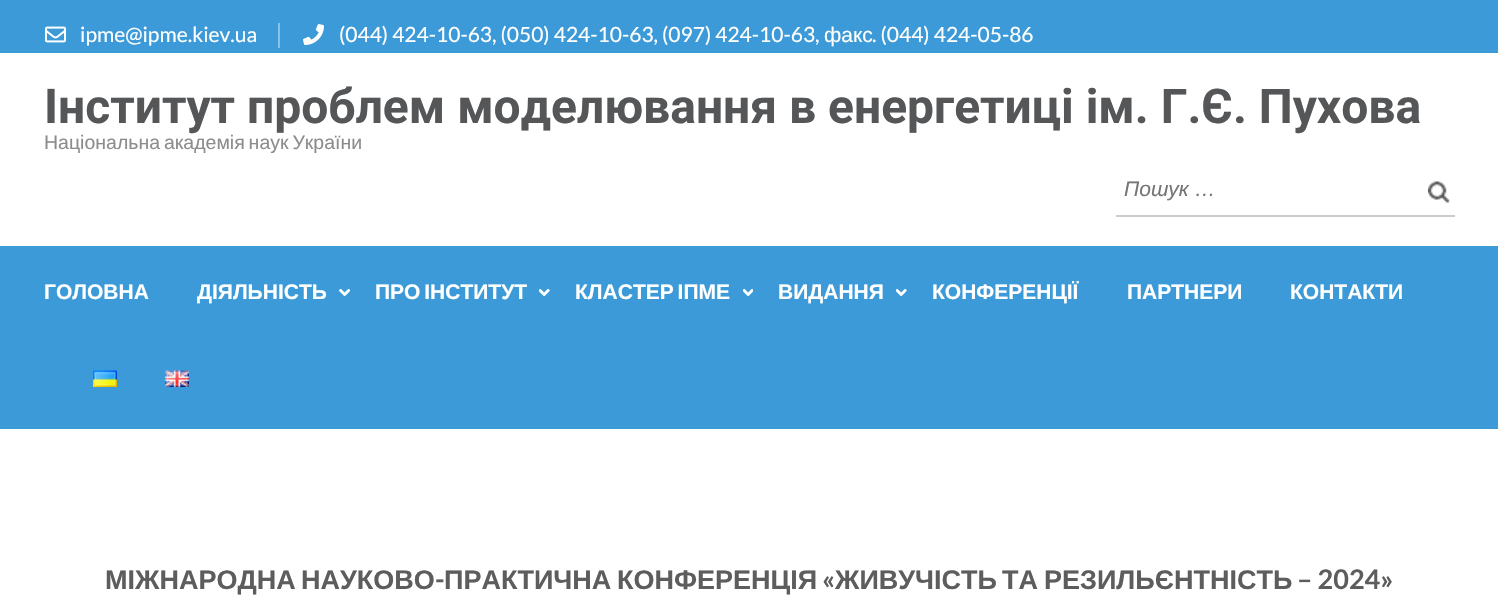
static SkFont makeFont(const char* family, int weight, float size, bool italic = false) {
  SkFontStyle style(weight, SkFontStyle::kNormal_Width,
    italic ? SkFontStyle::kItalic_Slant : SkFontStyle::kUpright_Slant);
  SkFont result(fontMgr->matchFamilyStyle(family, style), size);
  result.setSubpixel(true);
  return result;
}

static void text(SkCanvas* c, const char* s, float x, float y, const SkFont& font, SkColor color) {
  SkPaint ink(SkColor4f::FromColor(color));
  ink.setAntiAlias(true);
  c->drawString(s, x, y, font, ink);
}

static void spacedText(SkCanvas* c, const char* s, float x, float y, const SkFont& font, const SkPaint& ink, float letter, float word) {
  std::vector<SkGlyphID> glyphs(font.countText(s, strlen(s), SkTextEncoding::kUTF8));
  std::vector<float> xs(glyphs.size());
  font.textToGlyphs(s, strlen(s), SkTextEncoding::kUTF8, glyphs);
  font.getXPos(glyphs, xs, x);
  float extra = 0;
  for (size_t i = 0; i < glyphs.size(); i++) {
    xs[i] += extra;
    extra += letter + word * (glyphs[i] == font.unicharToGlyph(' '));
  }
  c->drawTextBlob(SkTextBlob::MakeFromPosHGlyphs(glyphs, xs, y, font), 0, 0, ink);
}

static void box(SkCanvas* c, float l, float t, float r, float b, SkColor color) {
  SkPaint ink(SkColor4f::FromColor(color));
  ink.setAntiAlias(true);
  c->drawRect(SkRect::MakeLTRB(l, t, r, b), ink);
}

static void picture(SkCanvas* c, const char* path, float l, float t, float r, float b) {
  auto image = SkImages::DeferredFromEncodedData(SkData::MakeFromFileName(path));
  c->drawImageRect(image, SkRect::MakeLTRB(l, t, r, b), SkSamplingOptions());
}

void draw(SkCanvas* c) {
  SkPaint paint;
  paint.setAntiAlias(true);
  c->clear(0xffffffff);
  box(c, 0, 0, 1498, 53, 0xff3b9ad7);
  picture(c, "img_01.png", 45, 26, 66, 43);
  SkFont face1 = makeFont("Lato", 400, 21);
  text(c, "ipme@ipme.kiev.ua", 80, 42, face1, 0xffffffff);
  box(c, 278, 23, 280, 48, 0xff89c2e7);
  picture(c, "img_02.png", 303, 24, 324, 45);
  text(c, "(044) 424-10-63, (050) 424-10-63, (097) 424-10-63,", 339, 42, face1, 0xffffffff);
  SkFont face2 = makeFont("Liberation Sans", 400, 21);
  text(c, "факс", 824, 42, face2, 0xffffffff);
  text(c, ". (044) 424-05-86", 872, 42, face1, 0xffffffff);
  SkFont face3 = makeFont("Roboto", 700, 48);
  text(c, "Інститут проблем моделювання в енергетиці ім. Г.Є. Пухова", 44, 123, face3, 0xff555658);
  SkFont face4 = makeFont("Liberation Sans", 400, 19.5f);
  paint.setColor(0xff8c8c8c);
  spacedText(c, "Національна академія наук України", 44, 149, face4, paint, 0, -1.5f);
  box(c, 1116, 215, 1455, 217, 0xffcccccc);
  SkFont face5 = makeFont("Liberation Sans", 400, 21, true);
  text(c, "Пошук …", 1124, 196, face5, 0xff757575);
  picture(c, "img_03.png", 1428, 181, 1450, 203);
  box(c, 0, 246, 1498, 429, 0xff3b9ad7);
  SkFont face6 = makeFont("Liberation Sans", 700, 21);
  text(c, "ГОЛОВНА", 44, 299, face6, 0xffffffff);
  text(c, "ДІЯЛЬНІСТЬ", 197, 299, face6, 0xffffffff);
  picture(c, "img_04.png", 339, 288, 350, 297);
  paint.setColor(0xffffffff);
  spacedText(c, "ПРО ІНСТИТУТ", 375, 299, face6, paint, 0, -2);
  picture(c, "img_05.png", 539, 288, 550, 297);
  spacedText(c, "КЛАСТЕР ІПМЕ", 575, 299, face6, paint, 0, -2);
  picture(c, "img_06.png", 743, 288, 753, 297);
  text(c, "ВИДАННЯ", 778, 299, face6, 0xffffffff);
  picture(c, "img_05.png", 896, 288, 907, 297);
  text(c, "КОНФЕРЕНЦІЇ", 932, 299, face6, 0xffffffff);
  text(c, "ПАРТНЕРИ", 1127, 299, face6, 0xffffffff);
  text(c, "КОНТАКТИ", 1290, 299, face6, 0xffffffff);
  picture(c, "img_07.png", 93, 370, 117, 387);
  picture(c, "img_08.png", 165, 370, 189, 387);
  SkFont face7 = makeFont("Liberation Sans", 700, 27);
  text(c, "МІЖНАРОДНА", 105, 589, face7, 0xff5d5d5d);
  text(c, "НАУКОВО", 301, 589, face7, 0xff5d5d5d);
  SkFont face8 = makeFont("Lato", 700, 27);
  text(c, "-", 435, 589, face8, 0xff5d5d5d);
  text(c, "ПРАКТИЧНА", 444, 589, face7, 0xff5d5d5d);
  text(c, "КОНФЕРЕНЦІЯ", 617, 589, face7, 0xff5d5d5d);
  text(c, "«", 822, 589, face8, 0xff5d5d5d);
  text(c, "ЖИВУЧІСТЬ", 835, 589, face7, 0xff5d5d5d);
  text(c, "ТА", 1002, 589, face7, 0xff5d5d5d);
  text(c, "РЕЗИЛЬЄНТНІСТЬ", 1044, 589, face7, 0xff5d5d5d);
  text(c, "– 2024»", 1297, 589, face8, 0xff5d5d5d);
}
